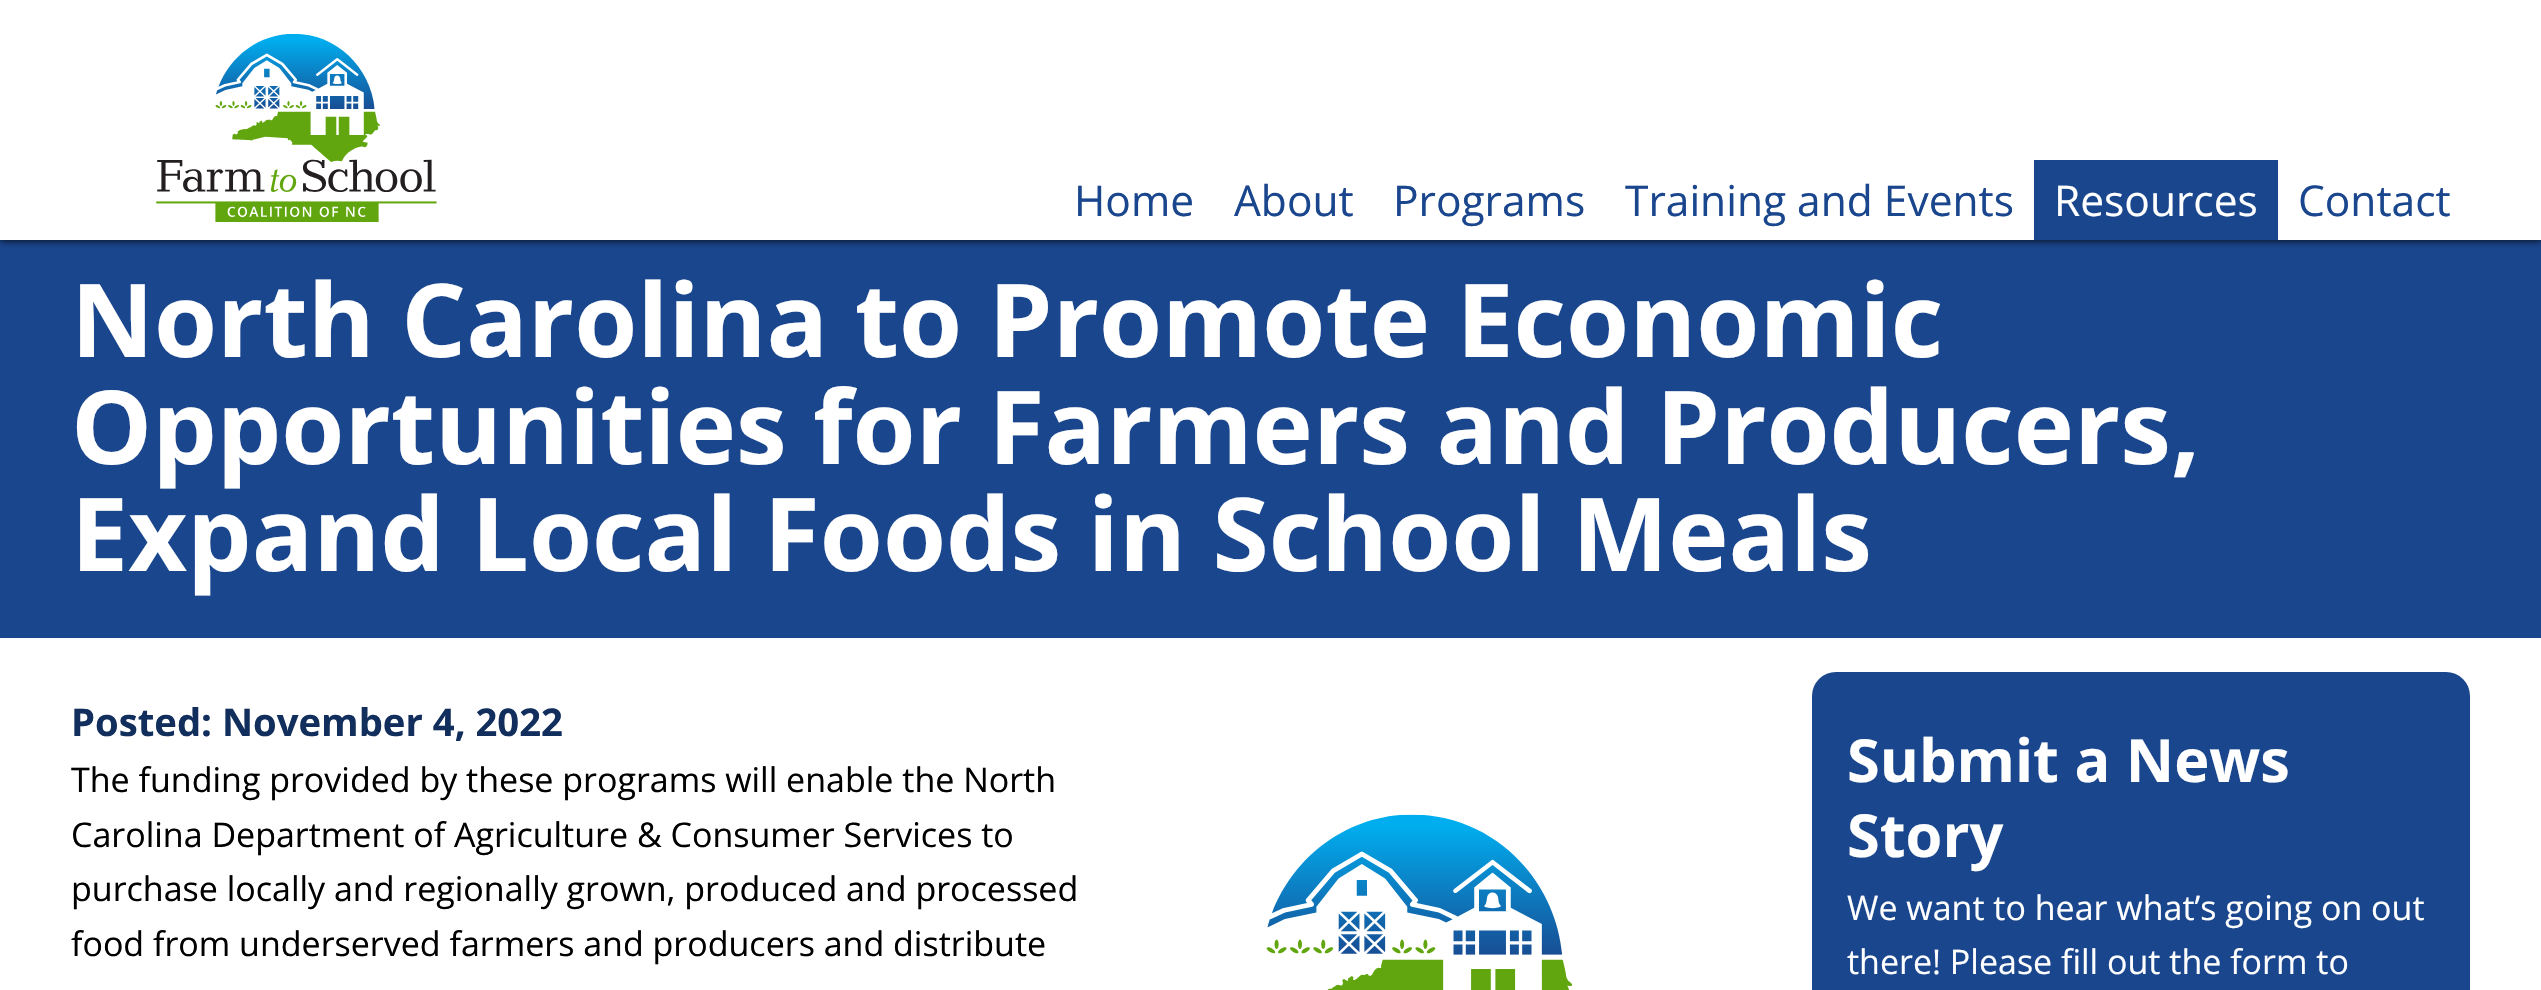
static SkFont makeFont(const char* family, int weight, float size, bool italic = false) {
  SkFontStyle style(weight, SkFontStyle::kNormal_Width,
    italic ? SkFontStyle::kItalic_Slant : SkFontStyle::kUpright_Slant);
  SkFont result(fontMgr->matchFamilyStyle(family, style), size);
  result.setSubpixel(true);
  return result;
}

static void text(SkCanvas* c, const char* s, float x, float y, const SkFont& font, SkColor color) {
  SkPaint ink(SkColor4f::FromColor(color));
  ink.setAntiAlias(true);
  c->drawString(s, x, y, font, ink);
}

static void box(SkCanvas* c, float l, float t, float r, float b, SkColor color) {
  SkPaint ink(SkColor4f::FromColor(color));
  ink.setAntiAlias(true);
  c->drawRect(SkRect::MakeLTRB(l, t, r, b), ink);
}

static void roundBox(SkCanvas* c, float l, float t, float r, float b, float radius, SkColor color) {
  SkPaint ink(SkColor4f::FromColor(color));
  ink.setAntiAlias(true);
  c->drawRoundRect(SkRect::MakeLTRB(l, t, r, b), radius, radius, ink);
}

static void picture(SkCanvas* c, const char* path, float l, float t, float r, float b) {
  auto image = SkImages::DeferredFromEncodedData(SkData::MakeFromFileName(path));
  c->drawImageRect(image, SkRect::MakeLTRB(l, t, r, b), SkSamplingOptions());
}

void draw(SkCanvas* c) {
  SkPaint paint;
  paint.setAntiAlias(true);
  c->clear(0xffffffff);
  box(c, 0, 240, 2541, 638, 0xff1a468d);
  paint.setColor(0xff000000);
  paint.setMaskFilter(SkMaskFilter::MakeBlur(kNormal_SkBlurStyle, 4));
  c->drawRect(SkRect::MakeLTRB(0, 0, 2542, 240), paint);
  paint.setMaskFilter(nullptr);
  box(c, 0, 0, 2541, 240, 0xffffffff);
  picture(c, "img_01.png", 156, 33, 437, 222);
  SkFont face1 = makeFont("Open Sans", 400, 42.5f);
  text(c, "Home", 1074, 216, face1, 0xff1a468d);
  text(c, "About", 1234, 216, face1, 0xff1a468d);
  text(c, "Programs", 1393, 216, face1, 0xff1a468d);
  text(c, "Training and Events", 1625, 216, face1, 0xff1a468d);
  box(c, 2034, 160, 2278, 240, 0xff1a468d);
  text(c, "Resources", 2054, 216, face1, 0xffffffff);
  text(c, "Contact", 2298, 216, face1, 0xff1a468d);
  SkFont face2 = makeFont("Open Sans", 700, 102);
  text(c, "North Carolina to Promote Economic", 71, 357, face2, 0xffffffff);
  text(c, "Opportunities for Farmers and Producers,", 71, 464, face2, 0xffffffff);
  text(c, "Expand Local Foods in School Meals", 71, 571, face2, 0xffffffff);
  SkFont face3 = makeFont("Open Sans", 700, 38.25f);
  text(c, "Posted: November 4, 2022", 71, 736, face3, 0xff112e5c);
  SkFont face4 = makeFont("Open Sans", 400, 34);
  text(c, "The funding provided by these programs will enable the North", 71, 792, face4, 0xff000000);
  text(c, "Carolina Department of Agriculture & Consumer Services to", 71, 847, face4, 0xff000000);
  text(c, "purchase locally and regionally grown, produced and processed", 71, 901, face4, 0xff000000);
  text(c, "food from underserved farmers and producers and distribute", 71, 956, face4, 0xff000000);
  picture(c, "img_02.png", 1266, 814, 1573, 990);
  roundBox(c, 1812, 672, 2470, 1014, 24, 0xff1a468d);
  SkFont face5 = makeFont("Open Sans", 700, 59.5f);
  text(c, "Submit a News", 1847, 782, face5, 0xffffffff);
  text(c, "Story", 1847, 857, face5, 0xffffffff);
  text(c, "We want to hear what’s going on out", 1847, 920, face4, 0xffffffff);
  text(c, "there! Please fill out the form to", 1847, 974, face4, 0xffffffff);
}
